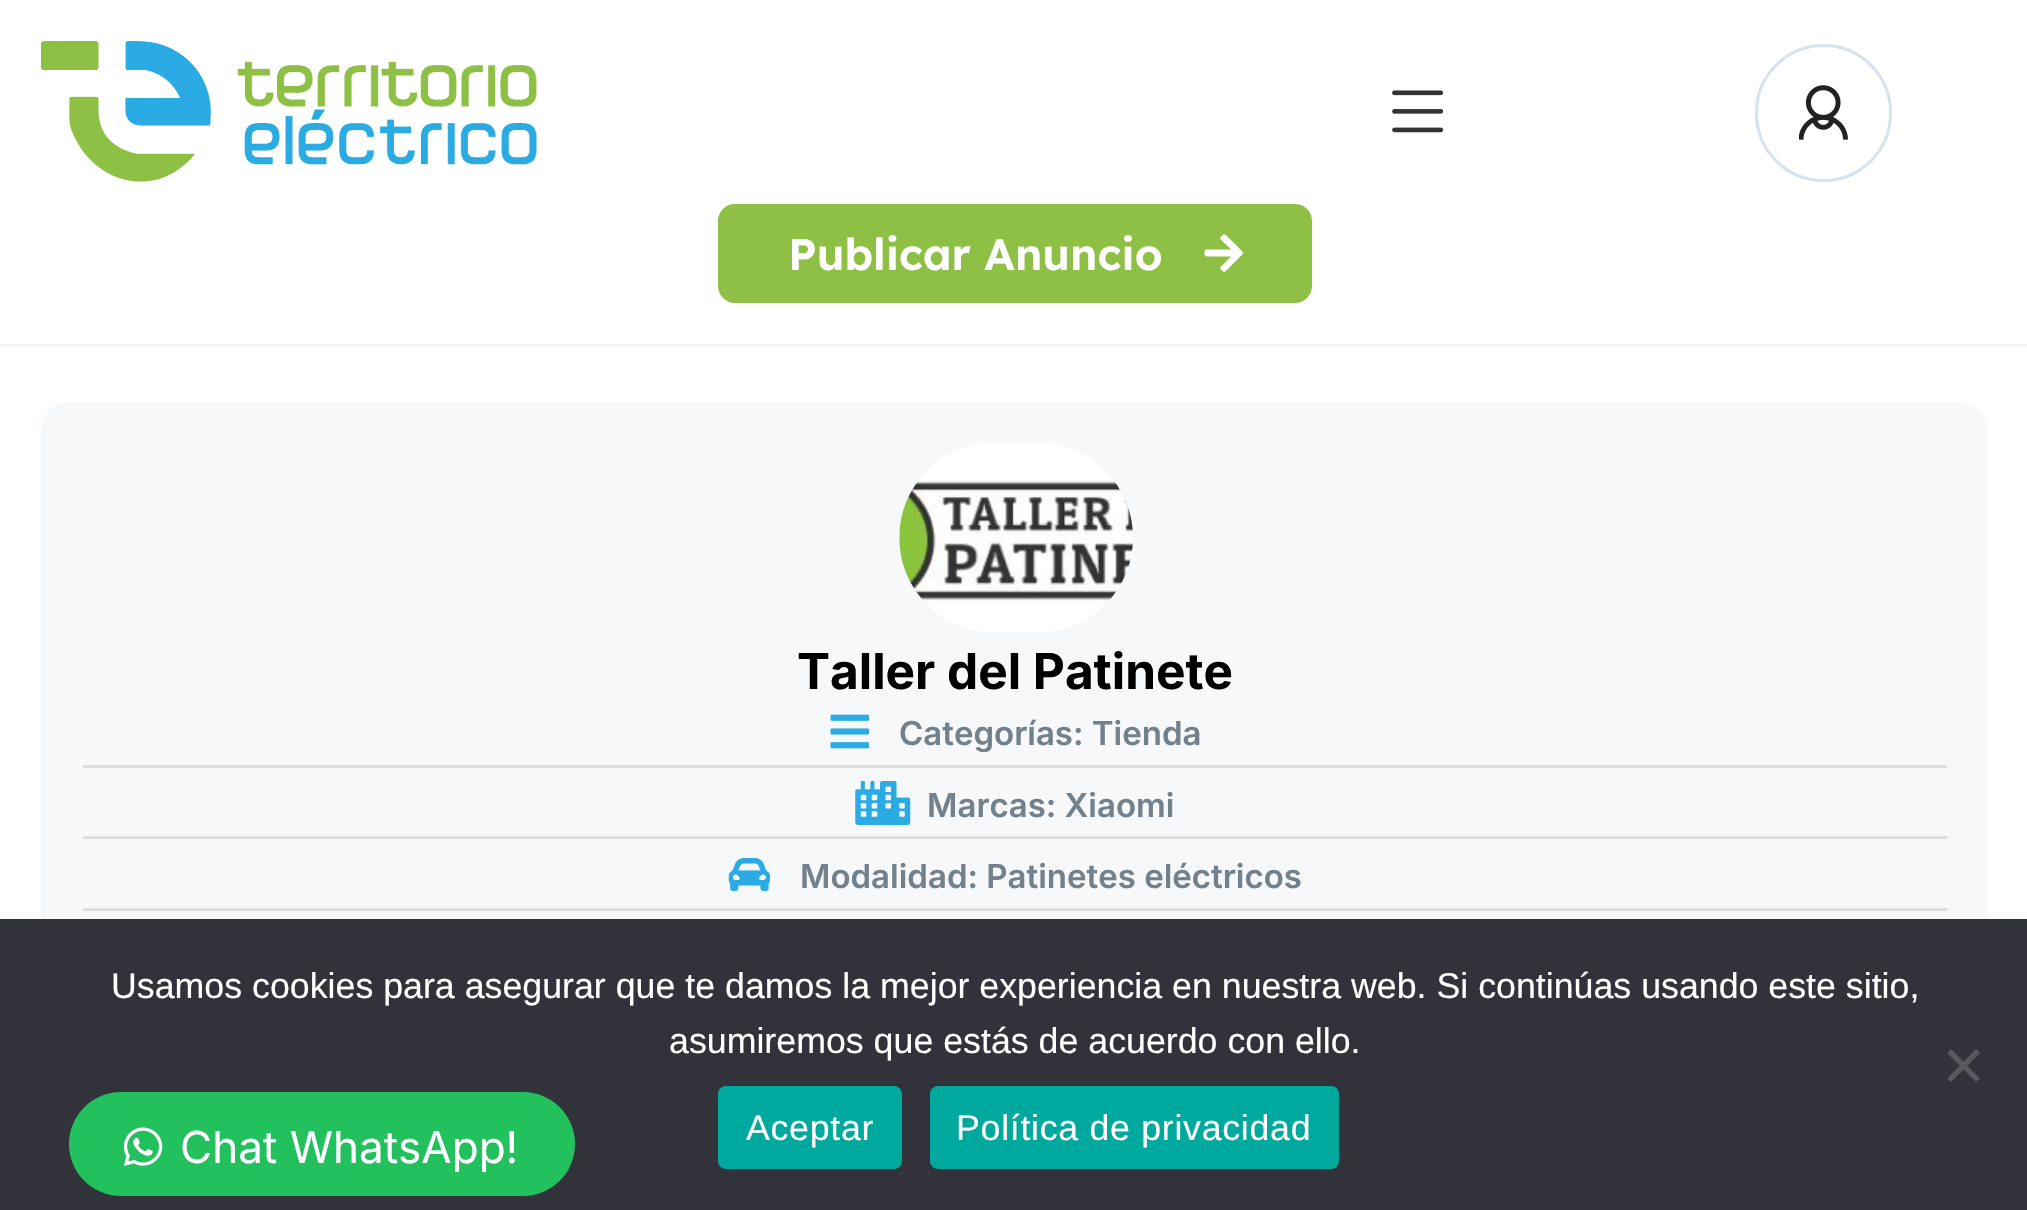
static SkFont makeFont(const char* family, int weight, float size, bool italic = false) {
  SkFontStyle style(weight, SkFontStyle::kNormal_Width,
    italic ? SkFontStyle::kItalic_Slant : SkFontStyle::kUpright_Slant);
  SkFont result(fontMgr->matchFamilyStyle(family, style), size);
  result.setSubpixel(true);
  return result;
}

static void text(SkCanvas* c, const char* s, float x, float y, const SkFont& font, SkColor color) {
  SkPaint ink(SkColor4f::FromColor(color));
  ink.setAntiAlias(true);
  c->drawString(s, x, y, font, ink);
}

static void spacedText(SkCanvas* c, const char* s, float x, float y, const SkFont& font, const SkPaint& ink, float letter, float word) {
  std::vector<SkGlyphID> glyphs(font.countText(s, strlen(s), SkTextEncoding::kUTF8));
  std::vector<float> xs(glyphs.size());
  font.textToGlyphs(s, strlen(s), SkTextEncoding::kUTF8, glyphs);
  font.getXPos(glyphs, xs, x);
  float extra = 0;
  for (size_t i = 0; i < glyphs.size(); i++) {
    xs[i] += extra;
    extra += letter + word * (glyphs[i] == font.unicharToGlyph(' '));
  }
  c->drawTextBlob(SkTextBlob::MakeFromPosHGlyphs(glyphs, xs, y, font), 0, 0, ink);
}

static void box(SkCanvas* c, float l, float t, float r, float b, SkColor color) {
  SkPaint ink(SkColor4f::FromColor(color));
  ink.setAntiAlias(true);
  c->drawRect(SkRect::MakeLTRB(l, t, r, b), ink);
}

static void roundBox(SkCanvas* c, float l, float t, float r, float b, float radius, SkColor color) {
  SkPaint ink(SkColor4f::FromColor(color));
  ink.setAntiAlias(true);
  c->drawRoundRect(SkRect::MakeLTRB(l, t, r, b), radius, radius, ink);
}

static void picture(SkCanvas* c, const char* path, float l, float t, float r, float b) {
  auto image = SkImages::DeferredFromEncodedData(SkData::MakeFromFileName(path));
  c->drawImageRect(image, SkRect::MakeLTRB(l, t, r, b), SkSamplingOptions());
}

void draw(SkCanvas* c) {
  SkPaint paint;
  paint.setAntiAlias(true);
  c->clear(0xffffffff);
  box(c, 0, 344, 2027, 347, 0xfff2f4f8);
  picture(c, "img_01.png", 41, 41, 537, 182);
  picture(c, "img_02.png", 1392, 90, 1444, 133);
  paint.setStyle(SkPaint::kStroke_Style);
  paint.setStrokeWidth(3);
  paint.setColor(0xffd5e3ee);
  c->drawRoundRect(SkRect::MakeLTRB(1756.5f, 45.5f, 1890.5f, 180.5f), 67, 67, paint);
  picture(c, "img_03.png", 1799, 85, 1848, 140);
  roundBox(c, 718, 204, 1312, 303, 17, 0xff8dc044);
  SkFont face1 = makeFont("Lexend Deca", 600, 44);
  text(c, "Publicar Anuncio", 788, 270, face1, 0xffffffff);
  picture(c, "img_04.png", 1204, 234, 1243, 272);
  roundBox(c, 41, 402, 1988, 1009, 28, 0xfff7f8fa);
  picture(c, "img_05.png", 899, 443, 1133, 632);
  SkFont face2 = makeFont("Inter", 700, 49.5f);
  text(c, "Taller del Patinete", 797, 689, face2, 0xff000000);
  picture(c, "img_06.png", 830, 714, 869, 749);
  SkFont face3 = makeFont("Inter", 600, 33);
  text(c, "Categorías: Tienda", 899, 745, face3, 0xff73818c);
  box(c, 83, 765, 1947, 768, 0xffdddddd);
  picture(c, "img_07.png", 855, 781, 911, 825);
  text(c, "Marcas: Xiaomi", 927, 817, face3, 0xff73818c);
  box(c, 83, 836, 1947, 839, 0xffdddddd);
  picture(c, "img_08.png", 728, 858, 770, 891);
  text(c, "Modalidad: Patinetes eléctricos", 800, 888, face3, 0xff73818c);
  box(c, 83, 908, 1947, 911, 0xffdddddd);
  box(c, 0, 919, 2027, 1210, 0xff32323a);
  SkFont face4 = makeFont("Liberation Sans", 400, 35.75f);
  text(c, "Usamos cookies para asegurar que te damos la mejor experiencia en nuestra web. Si continúas usando este sitio,", 111, 998, face4, 0xffffffff);
  text(c, "asumiremos que estás de acuerdo con ello.", 669, 1053, face4, 0xffffffff);
  paint.setStyle(SkPaint::kFill_Style);
  paint.setColor(0xff59595d);
  c->drawPath(SkPathBuilder().moveTo(1976, 1049).lineTo(1980, 1053).lineTo(1951, 1082).lineTo(1947, 1078.5f).close().detach(), paint);
  c->drawPath(SkPathBuilder().moveTo(1947, 1053).lineTo(1951, 1049).lineTo(1980, 1078.5f).lineTo(1976, 1082).close().detach(), paint);
  roundBox(c, 718, 1086, 902, 1169, 8, 0xff00a99d);
  paint.setColor(0xffffffff);
  spacedText(c, "Aceptar", 746, 1140, face4, paint, 0.7f, 0);
  roundBox(c, 930, 1086, 1339, 1169, 8, 0xff00a99d);
  spacedText(c, "Política de privacidad", 956, 1140, face4, paint, 0.7f, 0);
  roundBox(c, 69, 1092, 575, 1196, 52, 0xff22c15e);
  picture(c, "img_09.png", 124, 1127, 163, 1166);
  SkFont face5 = makeFont("Inter", 400, 44);
  text(c, "Chat WhatsApp!", 180, 1163, face5, 0xffffffff);
}
